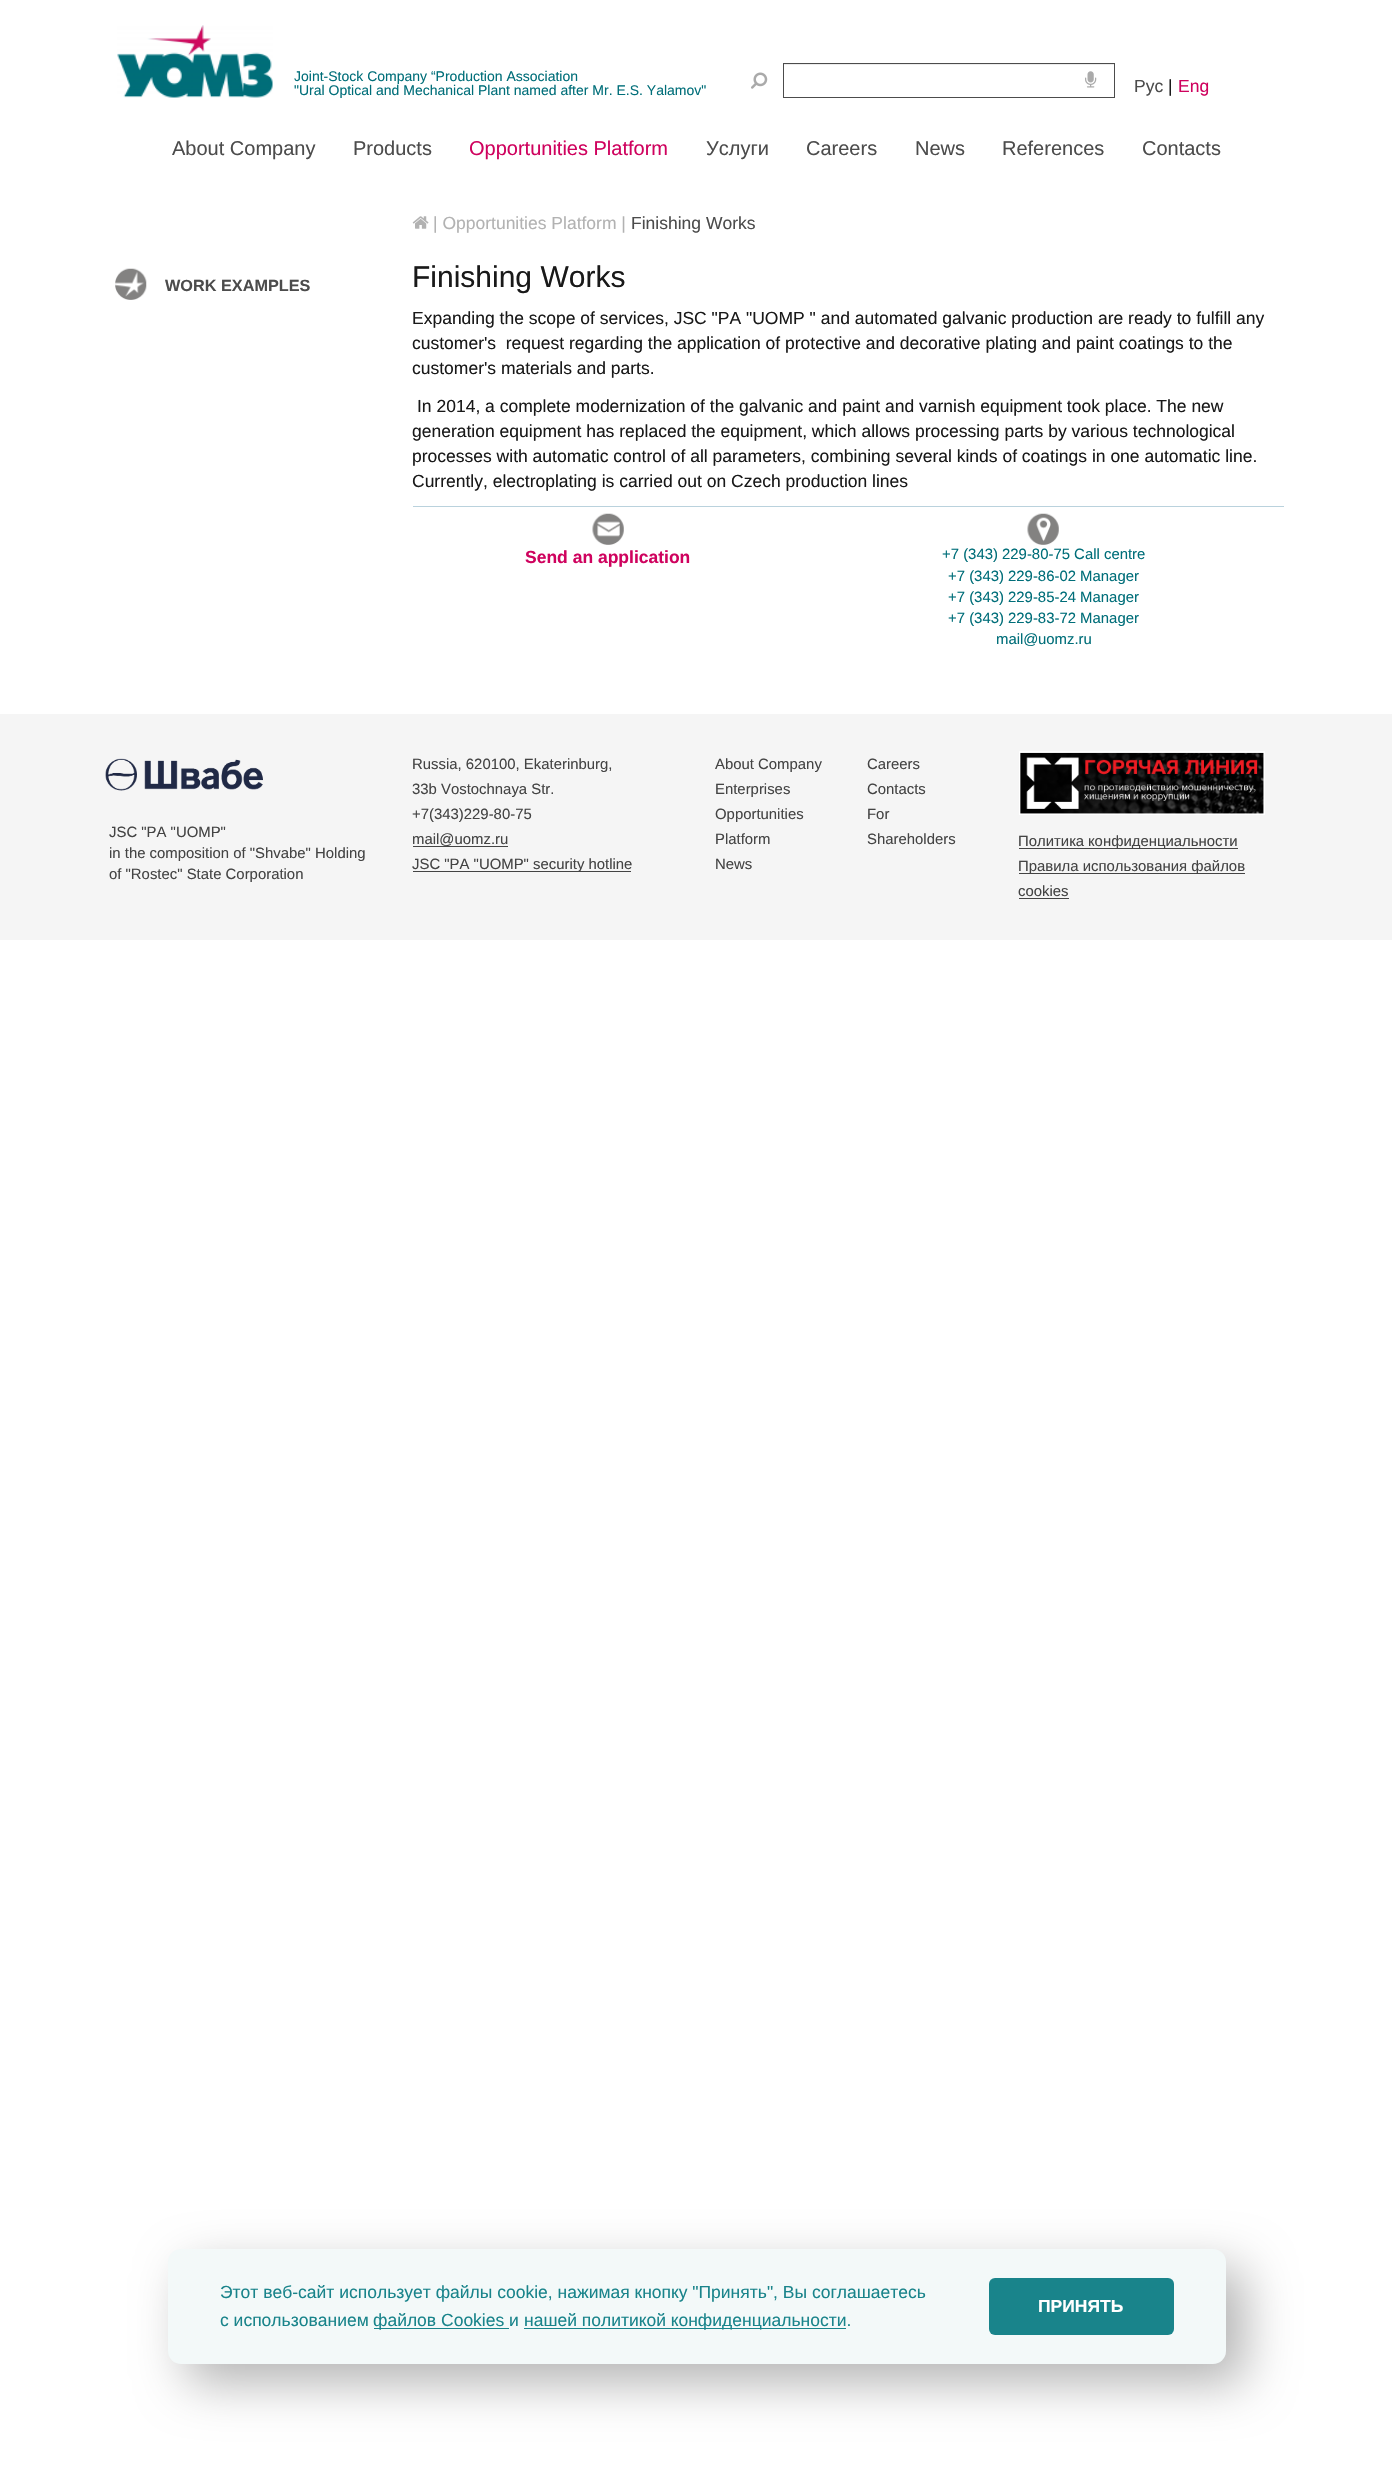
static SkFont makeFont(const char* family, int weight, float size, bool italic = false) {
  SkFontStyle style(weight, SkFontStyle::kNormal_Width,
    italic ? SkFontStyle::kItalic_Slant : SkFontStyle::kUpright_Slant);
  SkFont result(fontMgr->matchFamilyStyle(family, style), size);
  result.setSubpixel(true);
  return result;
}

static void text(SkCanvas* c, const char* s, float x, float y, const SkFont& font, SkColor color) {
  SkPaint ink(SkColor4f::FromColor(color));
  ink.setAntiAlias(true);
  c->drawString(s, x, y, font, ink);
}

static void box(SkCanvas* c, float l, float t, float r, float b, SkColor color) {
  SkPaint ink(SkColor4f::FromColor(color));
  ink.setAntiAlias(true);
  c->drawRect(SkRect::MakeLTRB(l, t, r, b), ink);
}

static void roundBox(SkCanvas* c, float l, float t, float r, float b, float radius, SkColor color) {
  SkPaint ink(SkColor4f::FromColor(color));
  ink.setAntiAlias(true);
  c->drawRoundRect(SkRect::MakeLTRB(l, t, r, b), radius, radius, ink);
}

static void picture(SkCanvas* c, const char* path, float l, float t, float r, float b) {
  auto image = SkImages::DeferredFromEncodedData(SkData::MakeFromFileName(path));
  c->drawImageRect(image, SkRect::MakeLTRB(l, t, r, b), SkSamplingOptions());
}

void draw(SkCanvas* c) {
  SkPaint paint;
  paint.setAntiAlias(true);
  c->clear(0xffffffff);
  picture(c, "img_01.png", 117, 25, 273, 98);
  SkFont face1 = makeFont("Liberation Sans", 400, 14);
  text(c, "Joint-Stock Company “Production Association", 294, 81, face1, 0xff006e79);
  text(c, "\"Ural Optical and Mechanical Plant named after Mr. E.S. Yalamov\"", 294, 95, face1, 0xff006e79);
  box(c, 784, 64, 1114, 65, 0xffececec);
  paint.setStyle(SkPaint::kStroke_Style);
  paint.setStrokeWidth(1);
  paint.setColor(0xff4c4c4c);
  c->drawRect(SkRect::MakeLTRB(783.5f, 63.5f, 1114.5f, 97.5f), paint);
  picture(c, "img_02.png", 751, 72, 768, 89);
  picture(c, "img_03.png", 1085, 71, 1097, 88);
  SkFont face2 = makeFont("Liberation Sans", 400, 17.5f);
  text(c, "Рус", 1134, 92, face2, 0xff4c4c4c);
  text(c, "|", 1168, 92, face2, 0xff191919);
  text(c, "Eng", 1178, 92, face2, 0xffcf025e);
  SkFont face3 = makeFont("Liberation Sans", 400, 20);
  text(c, "About Company", 172, 155, face3, 0xff4c4c4c);
  text(c, "Products", 353, 155, face3, 0xff4c4c4c);
  text(c, "Opportunities Platform", 469, 155, face3, 0xffcf025e);
  text(c, "Услуги", 706, 155, face3, 0xff4c4c4c);
  text(c, "Careers", 806, 155, face3, 0xff4c4c4c);
  text(c, "News", 915, 155, face3, 0xff4c4c4c);
  text(c, "References", 1002, 155, face3, 0xff4c4c4c);
  text(c, "Contacts", 1142, 155, face3, 0xff4c4c4c);
  picture(c, "img_04.png", 412, 216, 429, 229);
  text(c, "| Opportunities Platform |", 433, 229, face2, 0xffb2b2b2);
  text(c, "Finishing Works", 631, 229, face2, 0xff4c4c4c);
  picture(c, "img_05.png", 115, 268, 147, 300);
  SkFont face4 = makeFont("Liberation Sans", 700, 16.25f);
  text(c, "WORK EXAMPLES", 165, 291, face4, 0xff4c4c4c);
  SkFont face5 = makeFont("Liberation Sans", 400, 30);
  text(c, "Finishing Works", 412, 287, face5, 0xff191919);
  text(c, "Expanding the scope of services, JSC \"PA \"UOMP \" and automated galvanic production are ready to fulfill any", 412, 324, face2, 0xff191919);
  text(c, "customer's  request regarding the application of protective and decorative plating and paint coatings to the", 412, 349, face2, 0xff191919);
  text(c, "customer's materials and parts.", 412, 374, face2, 0xff191919);
  text(c, "In 2014, a complete modernization of the galvanic and paint and varnish equipment took place. The new", 417, 412, face2, 0xff191919);
  text(c, "generation equipment has replaced the equipment, which allows processing parts by various technological", 412, 437, face2, 0xff191919);
  text(c, "processes with automatic control of all parameters, combining several kinds of coatings in one automatic line.", 412, 462, face2, 0xff191919);
  text(c, "Currently, electroplating is carried out on Czech production lines", 412, 487, face2, 0xff191919);
  box(c, 413, 506, 1284, 507, 0xffbad2dd);
  picture(c, "img_06.png", 592, 513, 624, 545);
  SkFont face6 = makeFont("Liberation Sans", 700, 17.5f);
  text(c, "Send an application", 525, 563, face6, 0xffcf025e);
  picture(c, "img_07.png", 1027, 513, 1059, 545);
  SkFont face7 = makeFont("Liberation Sans", 400, 14.9f);
  text(c, "+7 (343) 229-80-75 Call centre", 942, 559, face7, 0xff006e79);
  text(c, "+7 (343) 229-86-02 Manager", 948, 581, face7, 0xff006e79);
  text(c, "+7 (343) 229-85-24 Manager", 948, 602, face7, 0xff006e79);
  text(c, "+7 (343) 229-83-72 Manager", 948, 623, face7, 0xff006e79);
  text(c, "mail", 996, 644, face7, 0xff006e79);
  SkFont face8 = makeFont("Liberation Sans", 400, 14.9f, true);
  text(c, "@", 1023, 644, face8, 0xff006e79);
  text(c, "uomz.ru", 1038, 644, face7, 0xff006e79);
  box(c, 0, 714, 1392, 940, 0xfff5f5f5);
  picture(c, "img_08.png", 105, 758, 263, 791);
  text(c, "JSC \"PA \"UOMP\"", 109, 837, face7, 0xff444444);
  text(c, "in the composition of \"Shvabe\" Holding", 109, 858, face7, 0xff444444);
  text(c, "of \"Rostec\" State Corporation", 109, 879, face7, 0xff444444);
  text(c, "Russia, 620100, Ekaterinburg,", 412, 769, face7, 0xff444444);
  text(c, "33b Vostochnaya Str.", 412, 794, face7, 0xff444444);
  text(c, "+7(343)229-80-75", 412, 819, face7, 0xff444444);
  box(c, 413, 846, 508, 847, 0xff444444);
  text(c, "mail@uomz.ru", 412, 844, face7, 0xff444444);
  box(c, 413, 871, 631, 872, 0xff444444);
  text(c, "JSC \"PA \"UOMP\" security hotline", 412, 869, face7, 0xff444444);
  text(c, "About Company", 715, 769, face7, 0xff444444);
  text(c, "Enterprises", 715, 794, face7, 0xff444444);
  text(c, "Opportunities", 715, 819, face7, 0xff444444);
  text(c, "Platform", 715, 844, face7, 0xff444444);
  text(c, "News", 715, 869, face7, 0xff444444);
  text(c, "Careers", 867, 769, face7, 0xff444444);
  text(c, "Contacts", 867, 794, face7, 0xff444444);
  text(c, "For", 867, 819, face7, 0xff444444);
  text(c, "Shareholders", 867, 844, face7, 0xff444444);
  picture(c, "img_09.png", 1019, 751, 1265, 815);
  box(c, 1019, 848, 1238, 849, 0xff444444);
  text(c, "Политика конфиденциальности", 1018, 846, face7, 0xff444444);
  box(c, 1019, 873, 1245, 874, 0xff444444);
  text(c, "Правила использования файлов", 1018, 871, face7, 0xff444444);
  text(c, "cookies", 1018, 896, face7, 0xff444444);
  box(c, 1019, 898, 1069, 899, 0xff444444);
  paint.setStyle(SkPaint::kFill_Style);
  paint.setColor(0xffb4b4b4);
  paint.setMaskFilter(SkMaskFilter::MakeBlur(kNormal_SkBlurStyle, 24.5f));
  c->drawRoundRect(SkRect::MakeLTRB(186, 2268, 1245, 2383), 13, 13, paint);
  paint.setMaskFilter(nullptr);
  roundBox(c, 168, 2249, 1226, 2364, 13, 0xfff3f9f9);
  text(c, "Этот веб-сайт использует файлы cookie, нажимая кнопку \"Принять\", Вы соглашаетесь", 220, 2298, face2, 0xff19848b);
  text(c, "с использованием", 220, 2326, face2, 0xff19848b);
  box(c, 374, 2328, 509, 2329, 0xff19848b);
  text(c, "файлов Cookies и", 373, 2326, face2, 0xff19848b);
  box(c, 524, 2328, 846, 2329, 0xff19848b);
  text(c, "нашей политикой конфиденциальности.", 524, 2326, face2, 0xff19848b);
  roundBox(c, 989, 2278, 1174, 2335, 6, 0xff19848b);
  text(c, "ПРИНЯТЬ", 1038, 2312, face6, 0xffffffff);
}
